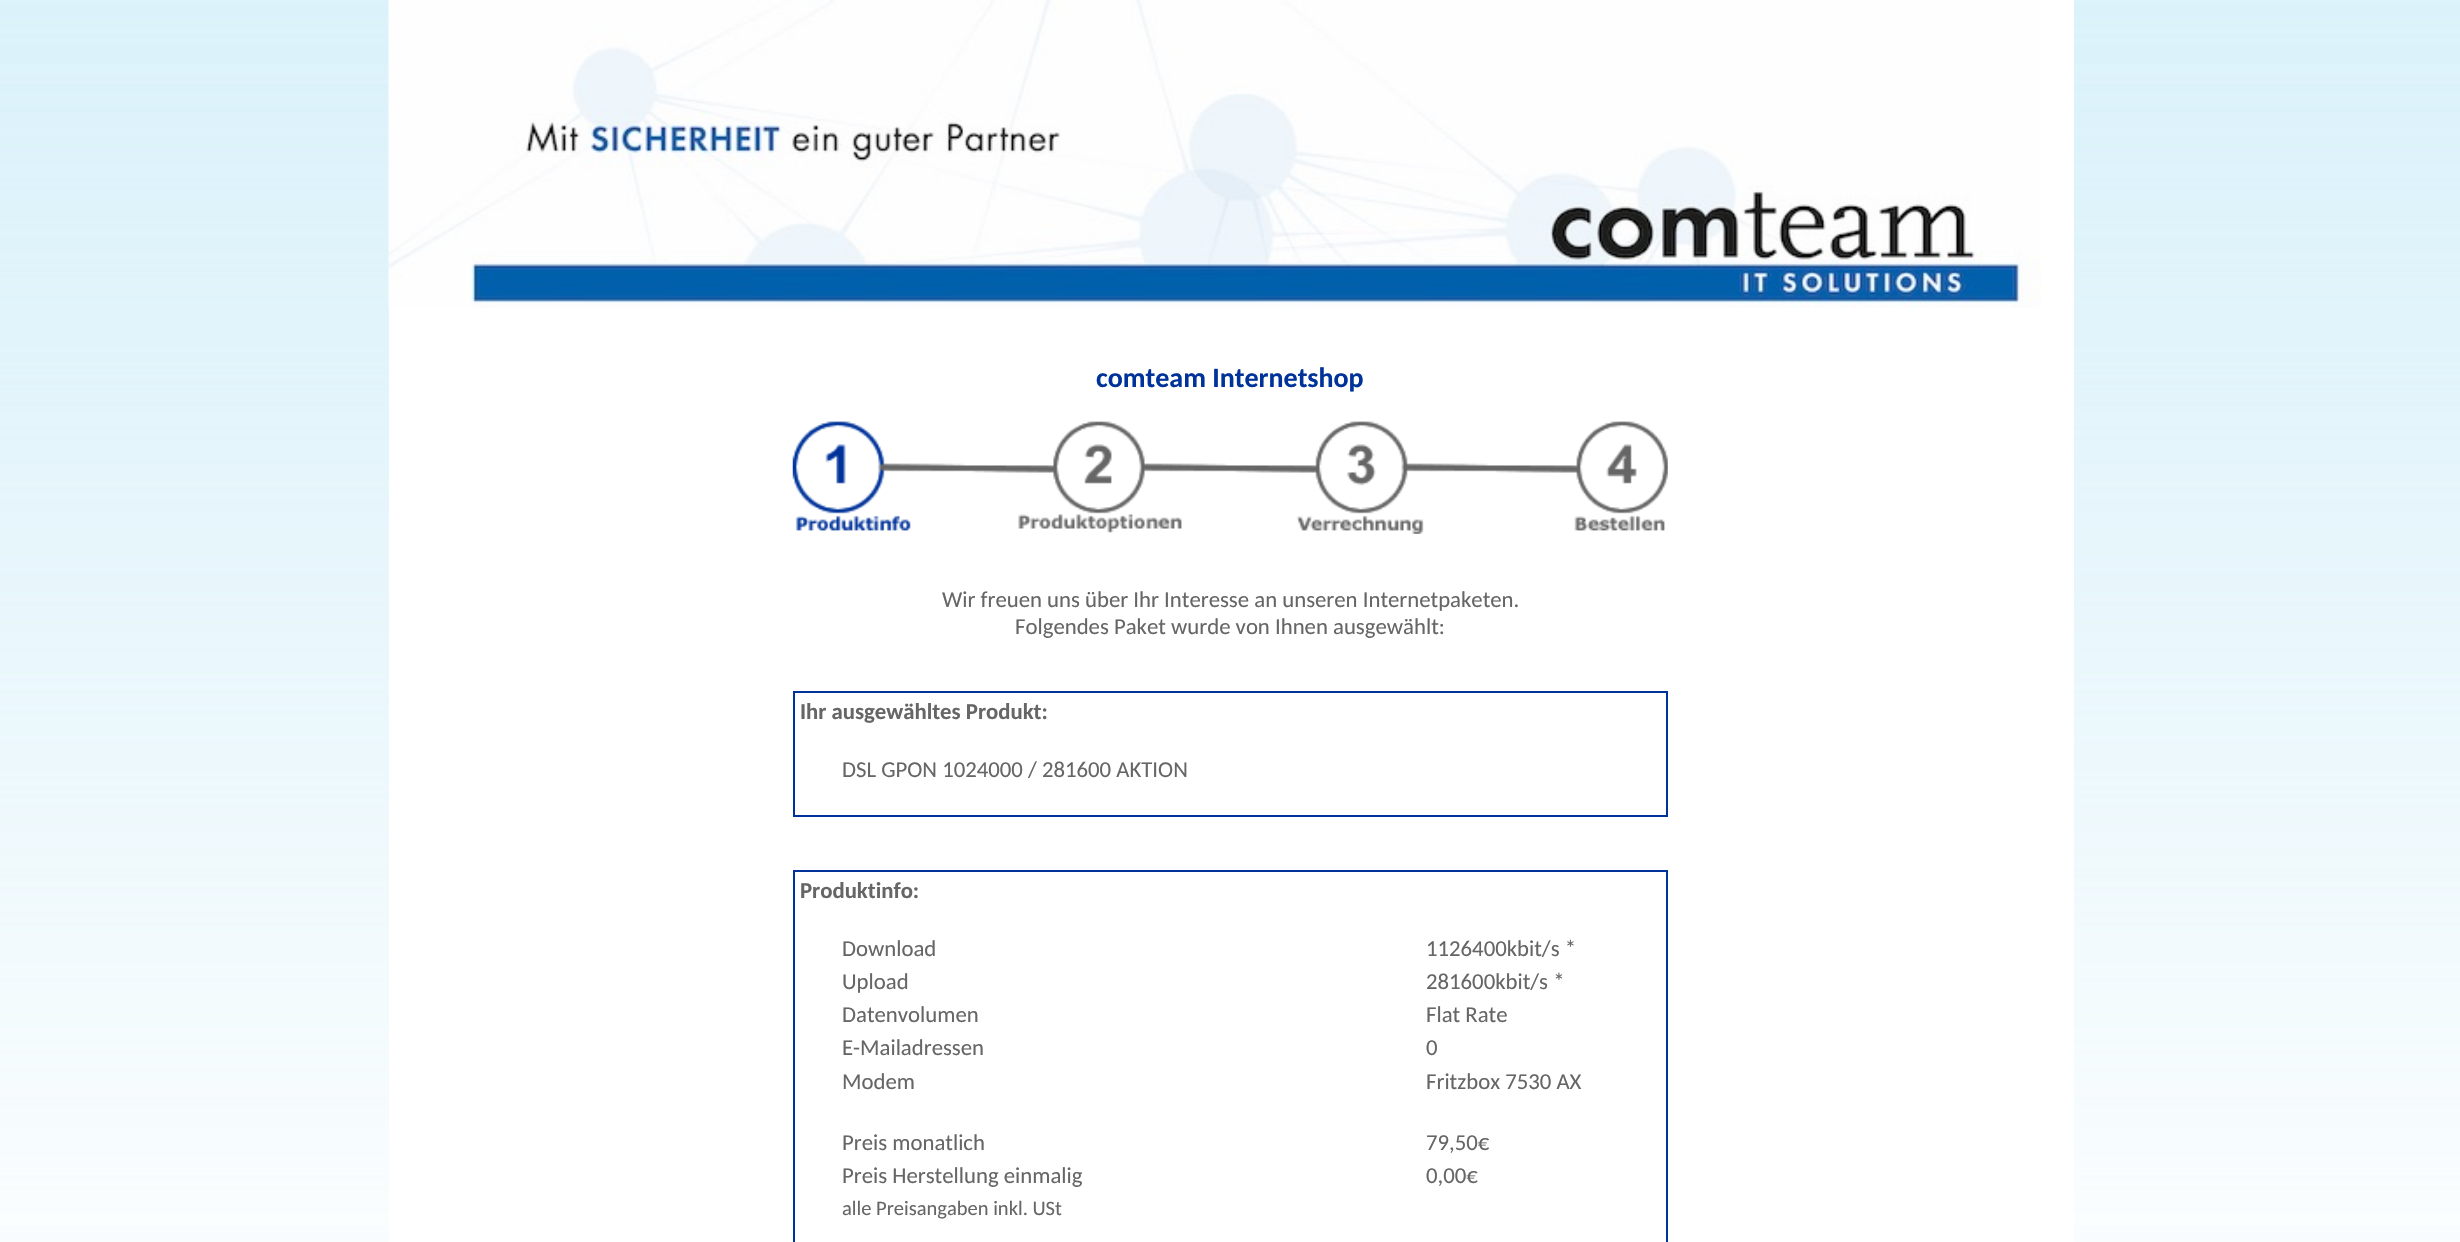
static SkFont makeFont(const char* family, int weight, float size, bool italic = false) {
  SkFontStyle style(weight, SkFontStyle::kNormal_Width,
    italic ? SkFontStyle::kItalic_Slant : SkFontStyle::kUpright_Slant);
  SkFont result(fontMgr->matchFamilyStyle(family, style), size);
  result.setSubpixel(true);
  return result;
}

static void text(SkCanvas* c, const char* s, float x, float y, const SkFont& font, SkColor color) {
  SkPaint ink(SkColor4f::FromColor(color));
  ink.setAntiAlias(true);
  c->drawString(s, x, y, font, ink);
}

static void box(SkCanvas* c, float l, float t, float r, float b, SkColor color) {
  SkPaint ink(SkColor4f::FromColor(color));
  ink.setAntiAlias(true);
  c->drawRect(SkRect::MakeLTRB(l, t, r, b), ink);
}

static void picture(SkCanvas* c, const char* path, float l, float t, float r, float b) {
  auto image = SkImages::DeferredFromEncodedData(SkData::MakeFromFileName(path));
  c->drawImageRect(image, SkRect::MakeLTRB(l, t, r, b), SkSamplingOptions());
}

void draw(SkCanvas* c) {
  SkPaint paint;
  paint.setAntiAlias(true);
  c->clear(0xffffffff);
  picture(c, "img_01.png", 0, 0, 2460, 1242);
  box(c, 389, 0, 2074, 1242, 0xffffffff);
  picture(c, "img_02.png", 388, 0, 2041, 308);
  SkFont face1 = makeFont("Carlito", 700, 28);
  text(c, "comteam Internetshop", 1096, 387, face1, 0xff003399);
  picture(c, "img_03.png", 792, 421, 1668, 534);
  SkFont face2 = makeFont("Carlito", 400, 22.75f);
  text(c, "Wir freuen uns über Ihr Interesse an unseren Internetpaketen.", 942, 607, face2, 0xff666666);
  text(c, "Folgendes Paket wurde von Ihnen ausgewählt:", 1015, 634, face2, 0xff666666);
  paint.setStyle(SkPaint::kStroke_Style);
  paint.setStrokeWidth(2);
  paint.setColor(0xff003399);
  c->drawRect(SkRect::MakeLTRB(794, 692, 1667, 816), paint);
  SkFont face3 = makeFont("Carlito", 700, 22.75f);
  text(c, "Ihr ausgewähltes Produkt:", 800, 719, face3, 0xff666666);
  text(c, "DSL GPON 1024000 / 281600 AKTION", 842, 777, face2, 0xff666666);
  c->drawRect(SkRect::MakeLTRB(794, 871, 1667, 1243), paint);
  text(c, "Produktinfo:", 800, 898, face3, 0xff666666);
  text(c, "Download", 842, 956, face2, 0xff666666);
  text(c, "1126400kbit/s *", 1426, 956, face2, 0xff666666);
  text(c, "Upload", 842, 989, face2, 0xff666666);
  text(c, "281600kbit/s *", 1426, 989, face2, 0xff666666);
  text(c, "Datenvolumen", 842, 1022, face2, 0xff666666);
  text(c, "Flat Rate", 1426, 1022, face2, 0xff666666);
  text(c, "E-Mailadressen", 842, 1055, face2, 0xff666666);
  text(c, "0", 1426, 1055, face2, 0xff666666);
  text(c, "Modem", 842, 1089, face2, 0xff666666);
  text(c, "Fritzbox 7530 AX", 1426, 1089, face2, 0xff666666);
  text(c, "Preis monatlich", 842, 1150, face2, 0xff666666);
  text(c, "79,50€", 1426, 1150, face2, 0xff666666);
  text(c, "Preis Herstellung einmalig", 842, 1183, face2, 0xff666666);
  text(c, "0,00€", 1426, 1183, face2, 0xff666666);
  SkFont face4 = makeFont("Carlito", 400, 20.5f);
  text(c, "alle Preisangaben inkl. USt", 842, 1215, face4, 0xff666666);
}
